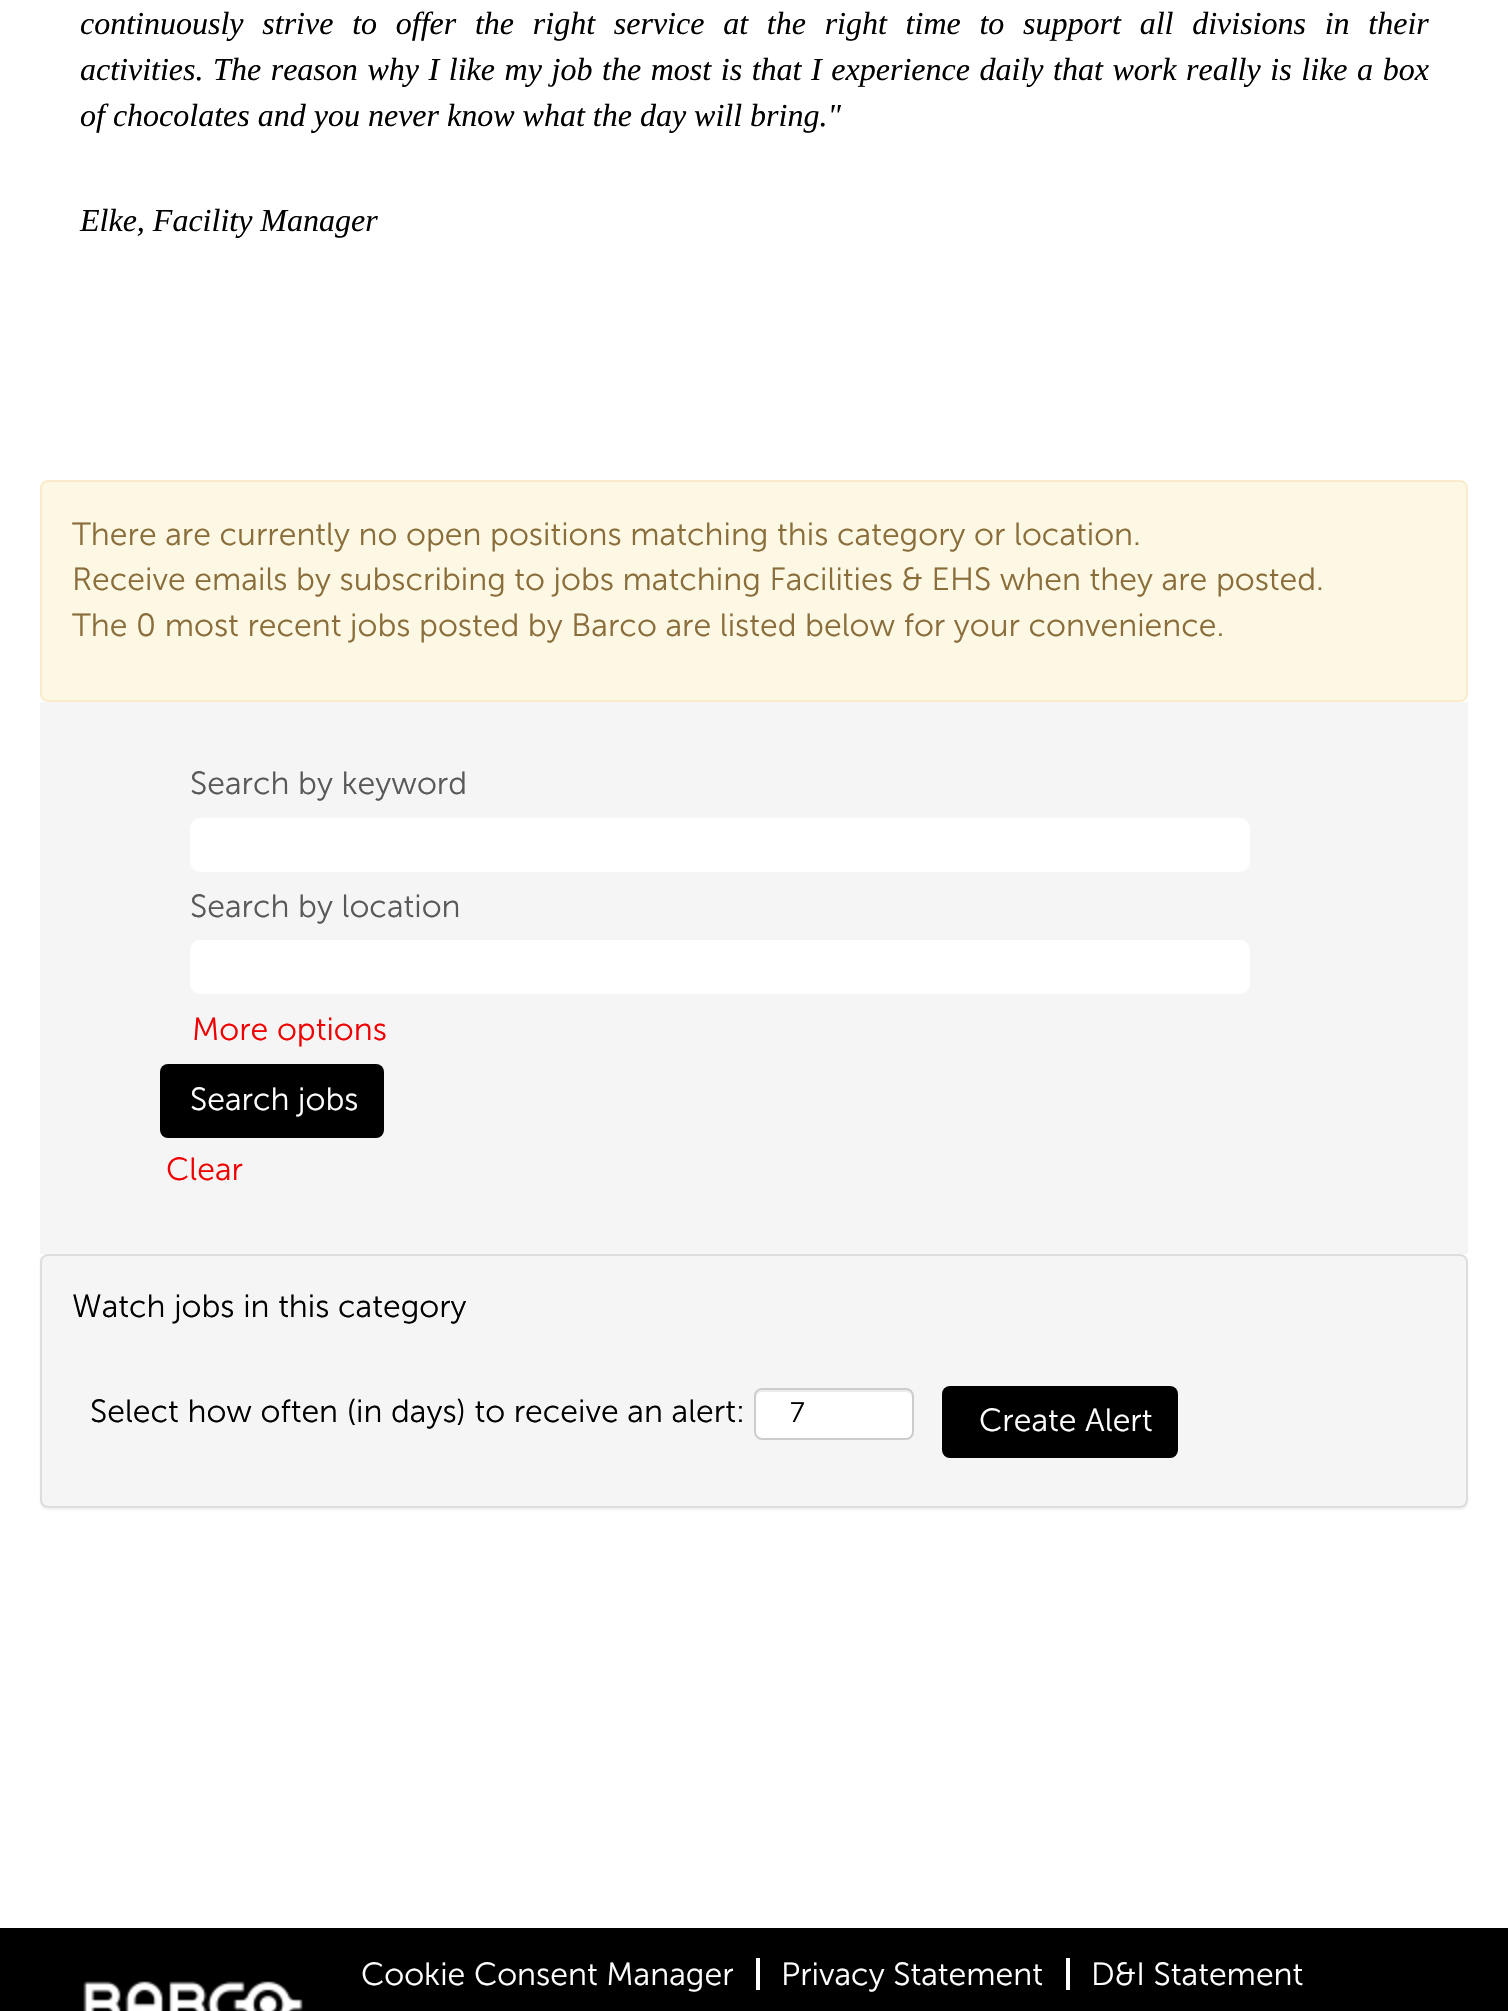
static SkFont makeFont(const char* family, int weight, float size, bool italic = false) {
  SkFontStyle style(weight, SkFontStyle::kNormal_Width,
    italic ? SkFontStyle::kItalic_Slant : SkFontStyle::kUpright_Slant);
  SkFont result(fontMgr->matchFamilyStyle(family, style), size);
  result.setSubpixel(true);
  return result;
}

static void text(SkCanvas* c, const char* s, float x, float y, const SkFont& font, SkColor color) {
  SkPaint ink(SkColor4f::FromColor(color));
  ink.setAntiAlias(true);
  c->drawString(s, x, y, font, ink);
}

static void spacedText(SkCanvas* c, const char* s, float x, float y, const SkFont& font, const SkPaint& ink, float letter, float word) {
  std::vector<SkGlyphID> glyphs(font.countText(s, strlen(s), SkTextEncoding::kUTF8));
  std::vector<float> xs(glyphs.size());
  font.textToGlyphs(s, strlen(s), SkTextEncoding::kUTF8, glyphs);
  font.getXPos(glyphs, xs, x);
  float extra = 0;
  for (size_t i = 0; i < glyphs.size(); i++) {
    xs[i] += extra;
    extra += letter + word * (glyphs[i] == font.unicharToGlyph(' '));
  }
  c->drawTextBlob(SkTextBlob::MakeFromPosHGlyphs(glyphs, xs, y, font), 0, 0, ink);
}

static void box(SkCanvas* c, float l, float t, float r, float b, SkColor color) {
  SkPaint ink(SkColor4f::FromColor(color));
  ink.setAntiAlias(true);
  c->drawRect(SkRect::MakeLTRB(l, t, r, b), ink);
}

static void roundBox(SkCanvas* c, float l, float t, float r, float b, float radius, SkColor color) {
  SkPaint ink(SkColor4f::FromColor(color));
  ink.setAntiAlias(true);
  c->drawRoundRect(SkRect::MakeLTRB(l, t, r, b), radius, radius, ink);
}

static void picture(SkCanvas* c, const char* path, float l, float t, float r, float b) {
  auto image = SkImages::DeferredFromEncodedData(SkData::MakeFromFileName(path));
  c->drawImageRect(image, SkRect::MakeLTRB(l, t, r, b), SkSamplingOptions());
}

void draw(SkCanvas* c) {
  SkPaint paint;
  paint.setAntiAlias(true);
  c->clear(0xffffffff);
  SkFont face1 = makeFont("Liberation Serif", 400, 32, true);
  paint.setColor(0xff000000);
  spacedText(c, "continuously strive to offer the right service at the right time to support all divisions in their", 80, 34, face1, paint, 0, 10.75f);
  spacedText(c, "activities. The reason why I like my job the most is that I experience daily that work really is like a box", 80, 80, face1, paint, 0, 1.6f);
  text(c, "of chocolates and you never know what the day will bring.\"", 80, 126, face1, 0xff000000);
  text(c, "Elke, Facility Manager", 80, 231, face1, 0xff000000);
  paint.setColor(0xfffcf8e3);
  c->drawRoundRect(SkRect::MakeLTRB(41, 481, 1467, 701), 7, 7, paint);
  paint.setStyle(SkPaint::kStroke_Style);
  paint.setStrokeWidth(2);
  paint.setColor(0xfffaebcc);
  c->drawRoundRect(SkRect::MakeLTRB(41, 481, 1467, 701), 7, 7, paint);
  SkFont face2 = makeFont("Museo Sans", 300, 32);
  text(c, "There are currently no open positions matching this category or location.", 72, 545, face2, 0xff8a6d3b);
  text(c, "Receive emails by subscribing to jobs matching Facilities & EHS when they are posted.", 72, 590, face2, 0xff8a6d3b);
  text(c, "The 0 most recent jobs posted by Barco are listed below for your convenience.", 72, 636, face2, 0xff8a6d3b);
  box(c, 40, 702, 1468, 1254, 0xfff5f5f5);
  text(c, "Search by keyword", 190, 794, face2, 0xff595959);
  roundBox(c, 190, 818, 1250, 872, 10, 0xffffffff);
  text(c, "Search by location", 190, 917, face2, 0xff595959);
  roundBox(c, 190, 940, 1250, 994, 10, 0xffffffff);
  text(c, "More options", 192, 1040, face2, 0xfff00000);
  roundBox(c, 160, 1064, 384, 1138, 8, 0xff000000);
  text(c, "Search jobs", 190, 1110, face2, 0xffffffff);
  text(c, "Clear", 166, 1180, face2, 0xfff00000);
  paint.setStyle(SkPaint::kFill_Style);
  paint.setColor(0x0d000000);
  paint.setMaskFilter(SkMaskFilter::MakeBlur(kNormal_SkBlurStyle, 1));
  c->drawRoundRect(SkRect::MakeLTRB(40, 1256, 1468, 1510), 8, 8, paint);
  paint.setMaskFilter(nullptr);
  paint.setColor(0xfff5f5f5);
  c->drawRoundRect(SkRect::MakeLTRB(41, 1255, 1467, 1507), 7, 7, paint);
  paint.setStyle(SkPaint::kStroke_Style);
  paint.setColor(0xffdddddd);
  c->drawRoundRect(SkRect::MakeLTRB(41, 1255, 1467, 1507), 7, 7, paint);
  text(c, "Watch jobs in this category", 72, 1317, face2, 0xff000000);
  text(c, "Select how often (in days) to receive an alert:", 90, 1422, face2, 0xff000000);
  roundBox(c, 754, 1388, 914, 1440, 8, 0xffffffff);
  paint.setStyle(SkPaint::kFill_Style);
  paint.setColor(0xffececec);
  c->drawPath(SkPathBuilder().moveTo(762, 1392).lineTo(906, 1392).cubicTo(909, 1392, 912, 1395, 912, 1398).lineTo(912, 1396).cubicTo(912, 1393, 909, 1390, 906, 1390).lineTo(762, 1390).cubicTo(759, 1390, 756, 1393, 756, 1396).lineTo(756, 1398).cubicTo(756, 1395, 759, 1392, 762, 1392).close().detach(), paint);
  paint.setStyle(SkPaint::kStroke_Style);
  paint.setColor(0xffcccccc);
  c->drawRoundRect(SkRect::MakeLTRB(755, 1389, 913, 1439), 7, 7, paint);
  SkFont face3 = makeFont("Museo Sans", 300, 28);
  text(c, "7", 790, 1422, face3, 0xff000000);
  roundBox(c, 942, 1386, 1178, 1458, 8, 0xff000000);
  text(c, "Create Alert", 979, 1431, face2, 0xffffffff);
  box(c, 0, 1928, 1508, 2011, 0xff000000);
  box(c, 756, 1958, 760, 1990, 0xffffffff);
  text(c, "Cookie Consent Manager", 361, 1985, face2, 0xffffffff);
  box(c, 1066, 1958, 1070, 1990, 0xffffffff);
  text(c, "Privacy Statement", 781, 1985, face2, 0xffffffff);
  text(c, "D&I Statement", 1091, 1985, face2, 0xffffffff);
  picture(c, "img_01.png", 83, 1981, 303, 2011);
}
